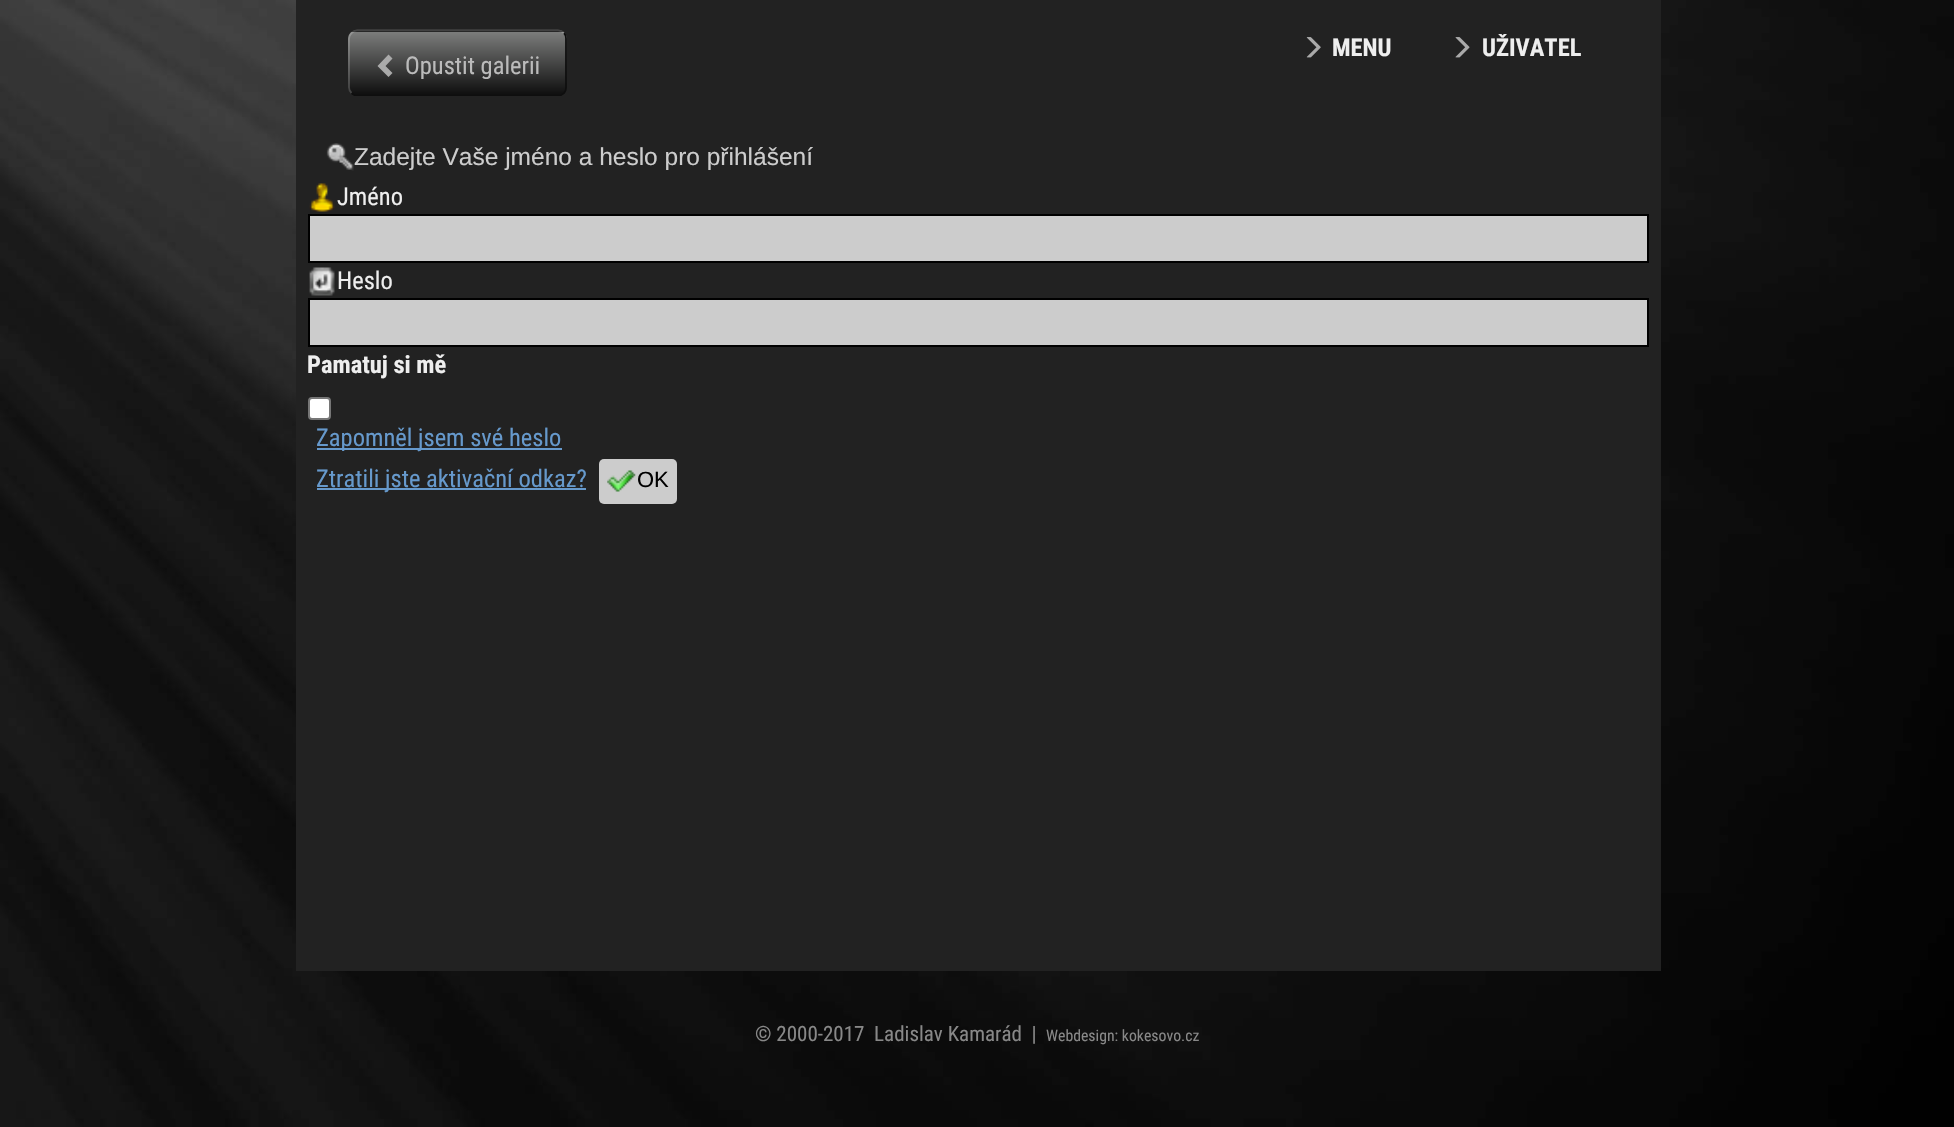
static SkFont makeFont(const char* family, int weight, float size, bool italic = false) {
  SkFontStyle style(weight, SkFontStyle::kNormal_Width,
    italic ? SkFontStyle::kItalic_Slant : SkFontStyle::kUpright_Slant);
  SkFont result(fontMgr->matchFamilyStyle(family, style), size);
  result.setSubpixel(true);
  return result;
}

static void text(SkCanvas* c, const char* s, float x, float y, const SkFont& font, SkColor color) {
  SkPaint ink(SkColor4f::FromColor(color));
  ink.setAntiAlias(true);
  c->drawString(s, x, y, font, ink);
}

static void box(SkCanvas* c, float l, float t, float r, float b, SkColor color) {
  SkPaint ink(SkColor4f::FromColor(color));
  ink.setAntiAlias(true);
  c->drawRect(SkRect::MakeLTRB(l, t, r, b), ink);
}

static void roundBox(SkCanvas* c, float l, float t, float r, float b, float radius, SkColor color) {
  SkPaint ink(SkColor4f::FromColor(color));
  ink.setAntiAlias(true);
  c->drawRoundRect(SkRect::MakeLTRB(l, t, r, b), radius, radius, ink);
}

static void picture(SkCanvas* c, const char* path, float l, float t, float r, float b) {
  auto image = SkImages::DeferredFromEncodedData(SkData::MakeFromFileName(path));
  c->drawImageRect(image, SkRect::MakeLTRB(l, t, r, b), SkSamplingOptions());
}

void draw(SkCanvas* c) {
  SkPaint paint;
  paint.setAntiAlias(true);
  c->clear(0xffffffff);
  picture(c, "img_01.png", 0, 0, 1954, 1127);
  box(c, 296, 0, 1661, 96, 0xff222222);
  picture(c, "img_02.png", 1306, 37, 1321, 58);
  SkFont face1 = makeFont("Roboto Condensed", 700, 24.5f);
  text(c, "MENU", 1332, 56, face1, 0xffeeeeee);
  picture(c, "img_03.png", 1455, 37, 1470, 58);
  text(c, "UŽIVATEL", 1482, 56, face1, 0xffeeeeee);
  c->save();
  c->clipPath(SkPathBuilder().moveTo(357, 30).lineTo(558, 30).cubicTo(563, 30, 567, 34, 567, 39).lineTo(567, 87).cubicTo(567, 92, 563, 96, 558, 96).lineTo(357, 96).cubicTo(352, 96, 348, 92, 348, 87).lineTo(348, 39).cubicTo(348, 34, 352, 30, 357, 30).close().detach(), true);
  {
    const SkColor colors[] = {0xff7d7e7d, 0xff0e0e0e};
    const float stops[] = {0, 1};
    const SkPoint ends[] = {{458, -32}, {458, 32}};
    paint.setShader(SkGradientShader::MakeLinear(ends, colors, stops, 2, SkTileMode::kClamp));
    paint.setAlpha(255);
  }
  c->drawRect(SkRect::MakeLTRB(348, 30, 567, 32), paint);
  {
    const SkColor colors[] = {0xff7d7e7d, 0xff0e0e0e};
    const float stops[] = {0, 1};
    const SkPoint ends[] = {{458, 31}, {458, 95}};
    paint.setShader(SkGradientShader::MakeLinear(ends, colors, stops, 2, SkTileMode::kClamp));
    paint.setAlpha(255);
  }
  c->drawRect(SkRect::MakeLTRB(348, 32, 567, 95), paint);
  c->restore();
  paint.setStyle(SkPaint::kStroke_Style);
  paint.setStrokeWidth(1.8f);
  paint.setShader(nullptr);
  paint.setColor(0xff0e0e0e);
  c->drawPath(SkPathBuilder().moveTo(564, 33).cubicTo(565.5f, 34.5f, 566, 36.5f, 566, 38.5f).lineTo(566, 87.5f).cubicTo(566, 89.5f, 565.5f, 91.5f, 564, 93).cubicTo(562.5f, 94.5f, 560.5f, 95.5f, 558, 95.5f).lineTo(357, 95.5f).cubicTo(355, 95.5f, 353, 94.5f, 351.5f, 93).detach(), paint);
  paint.setColor(0x33ffffff);
  c->drawPath(SkPathBuilder().moveTo(351.5f, 93).cubicTo(350, 91.5f, 349, 89.5f, 349, 87.5f).lineTo(349, 38.5f).cubicTo(349, 36.5f, 350, 34.5f, 351.5f, 33).cubicTo(353, 31.5f, 355, 30.5f, 357, 30.5f).lineTo(558, 30.5f).cubicTo(560.5f, 30.5f, 562.5f, 31.5f, 564, 33).detach(), paint);
  paint.setStyle(SkPaint::kFill_Style);
  paint.setColor(0xffaaaaaa);
  c->drawPath(SkPathBuilder().moveTo(392.5f, 58.5f).lineTo(385.5f, 66).lineTo(392.5f, 73).lineTo(388.5f, 77).lineTo(377.5f, 66).lineTo(388.5f, 54.5f).close().detach(), paint);
  SkFont face2 = makeFont("Roboto Condensed", 400, 24.5f);
  text(c, "Opustit galerii", 405, 74, face2, 0xffbbbbbb);
  box(c, 296, 96, 1661, 971, 0xff222222);
  picture(c, "img_04.png", 326, 143, 354, 171);
  SkFont face3 = makeFont("Liberation Sans", 400, 24.5f);
  text(c, "Zadejte Vaše jméno a heslo pro přihlášení", 354, 165, face3, 0xffcccccc);
  picture(c, "img_05.png", 309, 183, 335, 212);
  text(c, "Jméno", 337, 205, face2, 0xffeeeeee);
  paint.setColor(0xffcccccc);
  c->drawRect(SkRect::MakeLTRB(309, 215, 1648, 262), paint);
  paint.setStyle(SkPaint::kStroke_Style);
  paint.setStrokeWidth(2);
  paint.setColor(0xff000000);
  c->drawRect(SkRect::MakeLTRB(309, 215, 1648, 262), paint);
  picture(c, "img_06.png", 309, 267, 335, 296);
  text(c, "Heslo", 337, 289, face2, 0xffeeeeee);
  paint.setStyle(SkPaint::kFill_Style);
  paint.setColor(0xffcccccc);
  c->drawRect(SkRect::MakeLTRB(309, 299, 1648, 346), paint);
  paint.setStyle(SkPaint::kStroke_Style);
  paint.setColor(0xff000000);
  c->drawRect(SkRect::MakeLTRB(309, 299, 1648, 346), paint);
  text(c, "Pamatuj si mě", 307, 373, face1, 0xffeeeeee);
  paint.setStyle(SkPaint::kFill_Style);
  paint.setColor(0xffffffff);
  c->drawRoundRect(SkRect::MakeLTRB(309, 398, 330, 419), 3, 3, paint);
  paint.setStyle(SkPaint::kStroke_Style);
  paint.setColor(0xff767676);
  c->drawRoundRect(SkRect::MakeLTRB(309, 398, 330, 419), 3, 3, paint);
  box(c, 317, 448, 562, 450, 0xff6699cc);
  text(c, "Zapomněl jsem své heslo", 316, 446, face2, 0xff6699cc);
  box(c, 317, 488, 586, 490, 0xff6699cc);
  text(c, "Ztratili jste aktivační odkaz?", 316, 487, face2, 0xff6699cc);
  roundBox(c, 599, 459, 677, 504, 5, 0xffcccccc);
  picture(c, "img_07.png", 607, 470, 636, 492);
  SkFont face4 = makeFont("Liberation Sans", 400, 22);
  text(c, "OK", 637, 487, face4, 0xff000000);
  SkFont face5 = makeFont("Roboto Condensed", 400, 21);
  text(c, "© 2000-2017  Ladislav Kamarád  |", 755, 1041, face5, 0xff888888);
  SkFont face6 = makeFont("Roboto Condensed", 400, 15.75f);
  text(c, "Webdesign: kokesovo.cz", 1046, 1041, face6, 0xff888888);
}
